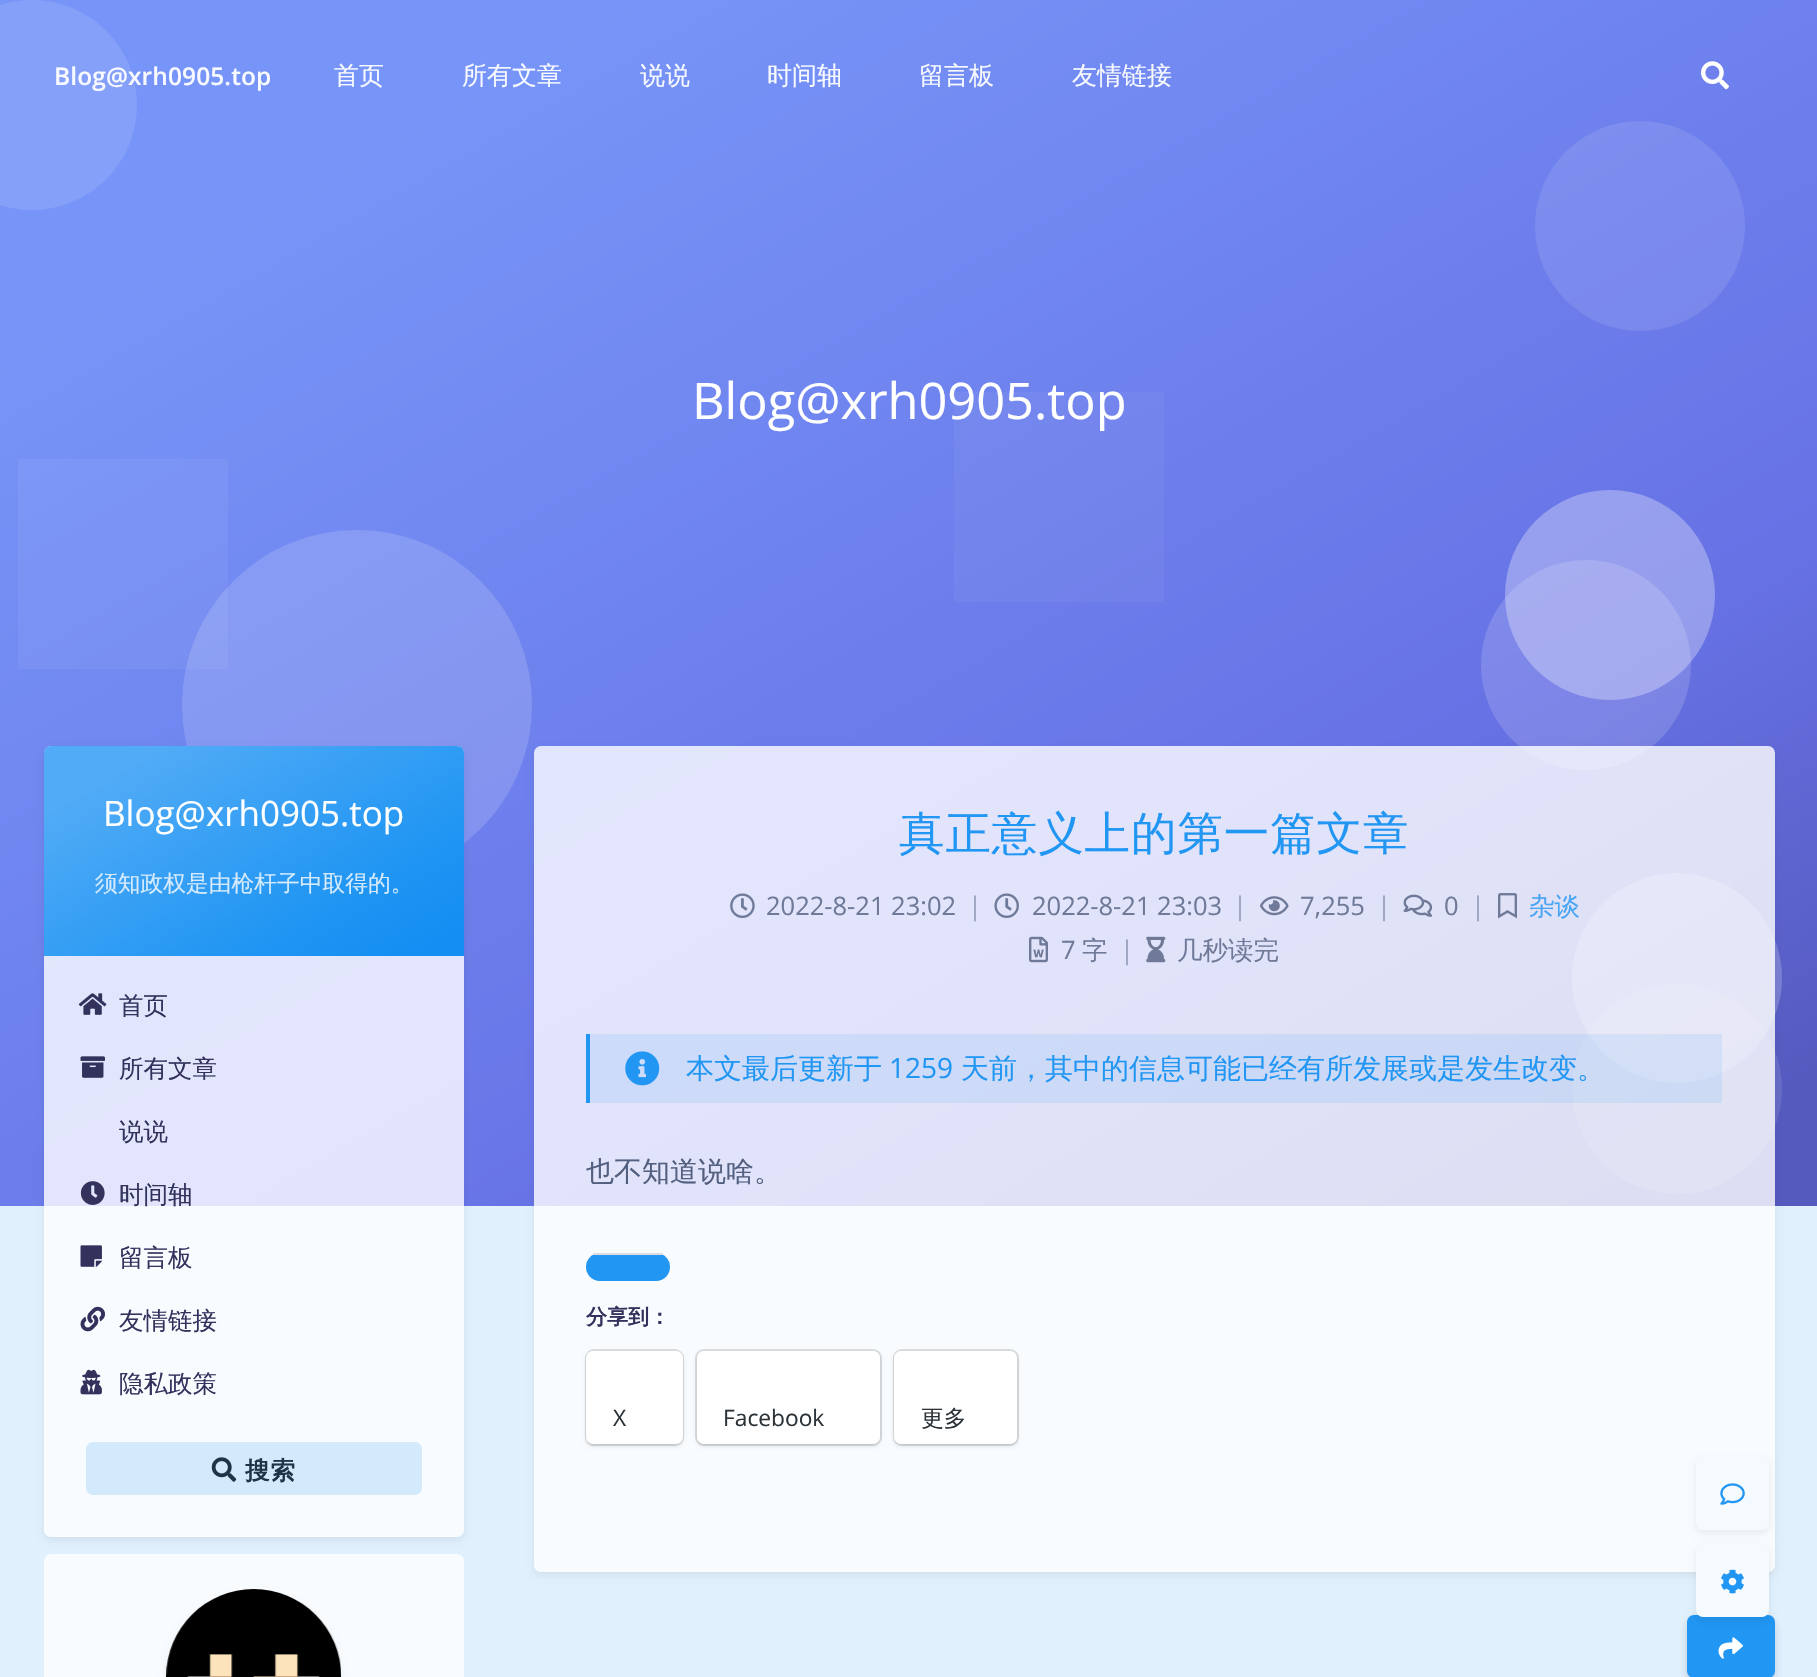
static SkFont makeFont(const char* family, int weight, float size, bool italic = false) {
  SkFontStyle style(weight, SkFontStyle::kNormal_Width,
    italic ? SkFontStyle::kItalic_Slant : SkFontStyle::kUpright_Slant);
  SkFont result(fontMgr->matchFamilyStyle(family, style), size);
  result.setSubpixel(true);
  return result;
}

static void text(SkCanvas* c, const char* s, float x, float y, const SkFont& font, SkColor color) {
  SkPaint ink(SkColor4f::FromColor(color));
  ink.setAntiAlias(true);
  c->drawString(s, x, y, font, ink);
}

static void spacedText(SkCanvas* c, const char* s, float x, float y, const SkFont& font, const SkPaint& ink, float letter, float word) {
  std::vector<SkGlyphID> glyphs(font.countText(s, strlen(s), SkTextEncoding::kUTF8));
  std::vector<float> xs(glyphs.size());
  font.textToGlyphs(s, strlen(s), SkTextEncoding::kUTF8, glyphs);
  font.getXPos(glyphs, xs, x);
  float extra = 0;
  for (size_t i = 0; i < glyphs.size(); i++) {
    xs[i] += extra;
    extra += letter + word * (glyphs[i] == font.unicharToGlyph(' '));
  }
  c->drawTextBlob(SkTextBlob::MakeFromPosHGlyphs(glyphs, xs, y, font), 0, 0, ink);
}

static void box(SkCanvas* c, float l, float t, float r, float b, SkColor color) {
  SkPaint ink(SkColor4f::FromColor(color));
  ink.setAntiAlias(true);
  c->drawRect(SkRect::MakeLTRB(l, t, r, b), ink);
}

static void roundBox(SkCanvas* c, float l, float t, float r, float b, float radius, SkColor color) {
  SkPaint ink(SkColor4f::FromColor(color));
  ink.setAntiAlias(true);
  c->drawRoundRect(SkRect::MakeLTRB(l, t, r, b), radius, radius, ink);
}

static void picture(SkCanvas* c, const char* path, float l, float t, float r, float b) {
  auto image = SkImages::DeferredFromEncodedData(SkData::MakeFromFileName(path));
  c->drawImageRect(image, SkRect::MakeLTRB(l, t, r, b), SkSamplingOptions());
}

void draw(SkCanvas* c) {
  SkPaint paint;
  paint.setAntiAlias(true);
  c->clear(0xffe0f0fd);
  {
    const SkColor colors[] = {0xff7795f8, 0xff6772e5, 0xff555abf};
    const float stops[] = {0.15f, 0.7f, 0.94f};
    const SkPoint ends[] = {{421, -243}, {1397, 1449}};
    paint.setShader(SkGradientShader::MakeLinear(ends, colors, stops, 3, SkTileMode::kClamp));
    paint.setAlpha(255);
  }
  c->drawRect(SkRect::MakeLTRB(0, 0, 1817, 1206), paint);
  paint.setShader(nullptr);
  paint.setColor(0xff85a0f9);
  c->drawCircle(32, 105, 105, paint);
  SkFont face1 = makeFont("Open Sans", 600, 24.5f);
  paint.setColor(0xfff8faff);
  spacedText(c, "Blog@xrh0905.top", 54, 85, face1, paint, 0.1f, 0);
  SkFont face2 = makeFont("WenQuanYi Zen Hei", 500, 25);
  text(c, "首页", 334, 84, face2, 0xfff8faff);
  text(c, "所有文章", 462, 84, face2, 0xfff8faff);
  text(c, "说说", 640, 84, face2, 0xfff8faff);
  text(c, "时间轴", 767, 84, face2, 0xfff8faff);
  text(c, "留言板", 919, 84, face2, 0xfff8faff);
  text(c, "友情链接", 1072, 84, face2, 0xfff8faff);
  picture(c, "img_01.png", 1701, 61, 1729, 90);
  paint.setColor(0x1affffff);
  c->drawCircle(1640, 226, 105, paint);
  box(c, 18, 459, 228, 669, 0x0dffffff);
  paint.setColor(0x26ffffff);
  c->drawCircle(357, 705, 175, paint);
  box(c, 954, 392, 1164, 602, 0x0affffff);
  paint.setColor(0x4dffffff);
  c->drawCircle(1610, 595, 105, paint);
  paint.setColor(0x26ffffff);
  c->drawCircle(1586, 665, 105, paint);
  paint.setColor(0x33ffffff);
  c->drawCircle(1677, 978, 105, paint);
  paint.setColor(0x1affffff);
  c->drawCircle(1677, 1089, 105, paint);
  SkFont face3 = makeFont("Open Sans", 400, 50.5f);
  text(c, "Blog@xrh0905.top", 692, 419, face3, 0xffffffff);
  c->save();
  c->clipPath(SkPathBuilder(SkPathFillType::kEvenOdd).moveTo(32, 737).lineTo(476, 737).lineTo(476, 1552).lineTo(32, 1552).close().moveTo(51, 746).lineTo(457, 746).cubicTo(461, 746, 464, 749, 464, 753).lineTo(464, 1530).cubicTo(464, 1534, 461, 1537, 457, 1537).lineTo(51, 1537).cubicTo(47, 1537, 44, 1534, 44, 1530).lineTo(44, 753).cubicTo(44, 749, 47, 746, 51, 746).close().detach(), true);
  paint.setColor(0x12000000);
  paint.setMaskFilter(SkMaskFilter::MakeBlur(kNormal_SkBlurStyle, 3.5f));
  c->drawRoundRect(SkRect::MakeLTRB(44, 749, 464, 1540), 7, 7, paint);
  paint.setMaskFilter(nullptr);
  c->restore();
  roundBox(c, 44, 746, 464, 1537, 7, 0xccffffff);
  {
    const SkColor colors[] = {0xff51abf6, 0xff2196f3, 0xff148ef3};
    const float stops[] = {0.15f, 0.7f, 0.94f};
    const SkPoint ends[] = {{156, 681}, {352, 1020}};
    paint.setShader(SkGradientShader::MakeLinear(ends, colors, stops, 3, SkTileMode::kClamp));
    paint.setAlpha(255);
  }
  c->drawPath(SkPathBuilder().moveTo(51, 746).lineTo(457, 746).cubicTo(461, 746, 464, 749, 464, 753).lineTo(464, 956).lineTo(44, 956).lineTo(44, 753).cubicTo(44, 749, 47, 746, 51, 746).close().detach(), paint);
  SkFont face4 = makeFont("Open Sans", 400, 35);
  text(c, "Blog@xrh0905.top", 103, 826, face4, 0xffffffff);
  SkFont face5 = makeFont("WenQuanYi Zen Hei", 500, 22.75f);
  text(c, "须知政权是由枪杆子中取得的。", 95, 891, face5, 0xffd5ebfd);
  picture(c, "img_02.png", 78, 993, 107, 1015);
  SkFont face6 = makeFont("WenQuanYi Zen Hei", 500, 24.5f);
  text(c, "首页", 119, 1014, face6, 0xff32325d);
  picture(c, "img_03.png", 80, 1056, 105, 1078);
  text(c, "所有文章", 119, 1077, face6, 0xff32325d);
  text(c, "说说", 119, 1140, face6, 0xff32325d);
  picture(c, "img_04.png", 80, 1181, 105, 1205);
  text(c, "时间轴", 119, 1203, face6, 0xff32325d);
  picture(c, "img_05.png", 80, 1245, 102, 1267);
  text(c, "留言板", 119, 1266, face6, 0xff32325d);
  picture(c, "img_06.png", 80, 1306, 105, 1332);
  text(c, "友情链接", 119, 1329, face6, 0xff32325d);
  picture(c, "img_07.png", 80, 1369, 102, 1395);
  text(c, "隐私政策", 119, 1392, face6, 0xff32325d);
  roundBox(c, 86, 1442, 422, 1495, 7, 0xffd3eafd);
  picture(c, "img_08.png", 211, 1457, 237, 1482);
  SkFont face7 = makeFont("WenQuanYi Zen Hei", 700, 24.5f);
  paint.setShader(nullptr);
  paint.setColor(0xff1f3444);
  spacedText(c, "搜索", 245, 1479, face7, paint, 1, 0);
  roundBox(c, 44, 1554, 464, 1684, 7, 0xccffffff);
  paint.setColor(0x12000000);
  paint.setMaskFilter(SkMaskFilter::MakeBlur(kNormal_SkBlurStyle, 3.5f));
  c->drawRoundRect(SkRect::MakeLTRB(166, 1593, 341, 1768), 87.5f, 87.5f, paint);
  paint.setMaskFilter(nullptr);
  paint.setColor(0x1a7f7f7f);
  c->drawCircle(253.5f, 1676.5f, 87.5f, paint);
  picture(c, "img_09.png", 166, 1589, 341, 1677);
  c->save();
  c->clipPath(SkPathBuilder(SkPathFillType::kEvenOdd).moveTo(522, 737).lineTo(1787, 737).lineTo(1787, 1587).lineTo(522, 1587).close().moveTo(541, 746).lineTo(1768, 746).cubicTo(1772, 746, 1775, 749, 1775, 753).lineTo(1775, 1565).cubicTo(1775, 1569, 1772, 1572, 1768, 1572).lineTo(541, 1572).cubicTo(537, 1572, 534, 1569, 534, 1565).lineTo(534, 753).cubicTo(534, 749, 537, 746, 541, 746).close().detach(), true);
  paint.setColor(0x12000000);
  paint.setMaskFilter(SkMaskFilter::MakeBlur(kNormal_SkBlurStyle, 3.5f));
  c->drawRoundRect(SkRect::MakeLTRB(534, 749, 1775, 1575), 7, 7, paint);
  paint.setMaskFilter(nullptr);
  c->restore();
  roundBox(c, 534, 746, 1775, 1572, 7, 0xccffffff);
  SkFont face8 = makeFont("WenQuanYi Zen Hei", 500, 45.5f);
  paint.setColor(0xff2196f3);
  spacedText(c, "真正意义上的第一篇文章", 899, 849, face8, paint, 0.9f, 0);
  picture(c, "img_10.png", 730, 893, 755, 918);
  SkFont face9 = makeFont("Open Sans", 400, 25.5f);
  text(c, "2022-8-21 23:02", 766, 915, face9, 0xff6f7a98);
  text(c, "|", 968, 915, face9, 0xff99a1bd);
  picture(c, "img_11.png", 994, 893, 1019, 918);
  text(c, "2022-8-21 23:03", 1032, 915, face9, 0xff6f7a98);
  text(c, "|", 1233, 915, face9, 0xff99a1bd);
  picture(c, "img_12.png", 1260, 896, 1289, 916);
  text(c, "7,255", 1300, 915, face9, 0xff6f7a98);
  text(c, "|", 1377, 915, face9, 0xff99a1bd);
  picture(c, "img_13.png", 1403, 894, 1433, 917);
  text(c, "0", 1444, 915, face9, 0xff6f7a98);
  text(c, "|", 1471, 915, face9, 0xff99a1bd);
  picture(c, "img_14.png", 1498, 893, 1517, 919);
  SkFont face10 = makeFont("WenQuanYi Zen Hei", 500, 25.5f);
  text(c, "杂谈", 1529, 915, face10, 0xff47a5f4);
  picture(c, "img_15.png", 1029, 936, 1048, 963);
  text(c, "7", 1061, 959, face9, 0xff6f7a98);
  text(c, "字", 1082, 959, face10, 0xff6f7a98);
  text(c, "|", 1120, 959, face9, 0xff99a1bd);
  picture(c, "img_16.png", 1146, 936, 1166, 963);
  text(c, "几秒读完", 1177, 959, face10, 0xff6f7a98);
  box(c, 590, 1034, 1722, 1103, 0x1a2196f3);
  box(c, 586, 1034, 590, 1103, 0xff2196f3);
  picture(c, "img_17.png", 625, 1051, 660, 1086);
  SkFont face11 = makeFont("WenQuanYi Zen Hei", 500, 28);
  text(c, "本文最后更新于", 686, 1078, face11, 0xff2196f3);
  SkFont face12 = makeFont("Open Sans", 400, 28);
  text(c, "1259", 889, 1078, face12, 0xff2196f3);
  text(c, "天前，其中的信息可能已经有所发展或是发生改变。", 961, 1078, face11, 0xff2196f3);
  text(c, "也不知道说啥。", 586, 1181, face11, 0xff525f7f);
  roundBox(c, 586, 1253, 670, 1281, 14, 0xff2196f3);
  box(c, 593, 1253, 663, 1255, 0xffdcdcde);
  SkFont face13 = makeFont("WenQuanYi Zen Hei", 700, 21);
  text(c, "分享到：", 586, 1324, face13, 0xff32325d);
  paint.setStyle(SkPaint::kStroke_Style);
  paint.setStrokeWidth(2);
  paint.setColor(0xffdbdee0);
  c->drawRoundRect(SkRect::MakeLTRB(586, 1350, 683, 1445), 8, 8, paint);
  paint.setStyle(SkPaint::kFill_Style);
  paint.setColor(0x1f000000);
  paint.setMaskFilter(SkMaskFilter::MakeBlur(kNormal_SkBlurStyle, 2));
  c->drawRoundRect(SkRect::MakeLTRB(586, 1353, 683, 1446), 7, 7, paint);
  paint.setMaskFilter(nullptr);
  roundBox(c, 586, 1351, 683, 1444, 7, 0xffffffff);
  SkFont face14 = makeFont("Open Sans", 400, 22.75f);
  text(c, "X", 613, 1426, face14, 0xff2c3338);
  paint.setStyle(SkPaint::kStroke_Style);
  paint.setColor(0xffdbdee0);
  c->drawRoundRect(SkRect::MakeLTRB(696, 1350, 881, 1445), 8, 8, paint);
  paint.setStyle(SkPaint::kFill_Style);
  paint.setColor(0x1f000000);
  paint.setMaskFilter(SkMaskFilter::MakeBlur(kNormal_SkBlurStyle, 2));
  c->drawRoundRect(SkRect::MakeLTRB(697, 1353, 880, 1446), 7, 7, paint);
  paint.setMaskFilter(nullptr);
  roundBox(c, 697, 1351, 880, 1444, 7, 0xffffffff);
  text(c, "Facebook", 723, 1426, face14, 0xff2c3338);
  paint.setStyle(SkPaint::kStroke_Style);
  paint.setColor(0xffdbdee0);
  c->drawRoundRect(SkRect::MakeLTRB(894, 1350, 1018, 1445), 8, 8, paint);
  paint.setStyle(SkPaint::kFill_Style);
  paint.setColor(0x1f000000);
  paint.setMaskFilter(SkMaskFilter::MakeBlur(kNormal_SkBlurStyle, 2));
  c->drawRoundRect(SkRect::MakeLTRB(894, 1353, 1017, 1446), 7, 7, paint);
  paint.setMaskFilter(nullptr);
  roundBox(c, 894, 1351, 1017, 1444, 7, 0xffffffff);
  text(c, "更多", 921, 1426, face5, 0xff2c3338);
  paint.setColor(0x14000000);
  paint.setMaskFilter(SkMaskFilter::MakeBlur(kNormal_SkBlurStyle, 2.5f));
  c->drawRoundRect(SkRect::MakeLTRB(1687, 1617, 1775, 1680), 7, 7, paint);
  paint.setMaskFilter(nullptr);
  paint.setColor(0x1c32325d);
  paint.setMaskFilter(SkMaskFilter::MakeBlur(kNormal_SkBlurStyle, 5));
  c->drawRoundRect(SkRect::MakeLTRB(1687, 1622, 1775, 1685), 7, 7, paint);
  paint.setMaskFilter(nullptr);
  paint.setColor(0xff2196f3);
  c->drawRoundRect(SkRect::MakeLTRB(1688, 1616, 1774, 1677), 6, 6, paint);
  paint.setStyle(SkPaint::kStroke_Style);
  c->drawRoundRect(SkRect::MakeLTRB(1688, 1616, 1774, 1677), 6, 6, paint);
  picture(c, "img_18.png", 1718, 1637, 1743, 1659);
  paint.setStyle(SkPaint::kFill_Style);
  paint.setColor(0x12000000);
  paint.setMaskFilter(SkMaskFilter::MakeBlur(kNormal_SkBlurStyle, 3.5f));
  c->drawRoundRect(SkRect::MakeLTRB(1696, 1460, 1769, 1533), 7, 7, paint);
  paint.setMaskFilter(nullptr);
  roundBox(c, 1696, 1456, 1769, 1530, 7, 0xfff4fafe);
  picture(c, "img_19.png", 1720, 1483, 1745, 1505);
  paint.setMaskFilter(SkMaskFilter::MakeBlur(kNormal_SkBlurStyle, 3.5f));
  c->drawRoundRect(SkRect::MakeLTRB(1696, 1547, 1769, 1621), 7, 7, paint);
  paint.setMaskFilter(nullptr);
  roundBox(c, 1696, 1544, 1769, 1617, 7, 0xfff4fafe);
  picture(c, "img_20.png", 1721, 1569, 1744, 1594);
}
